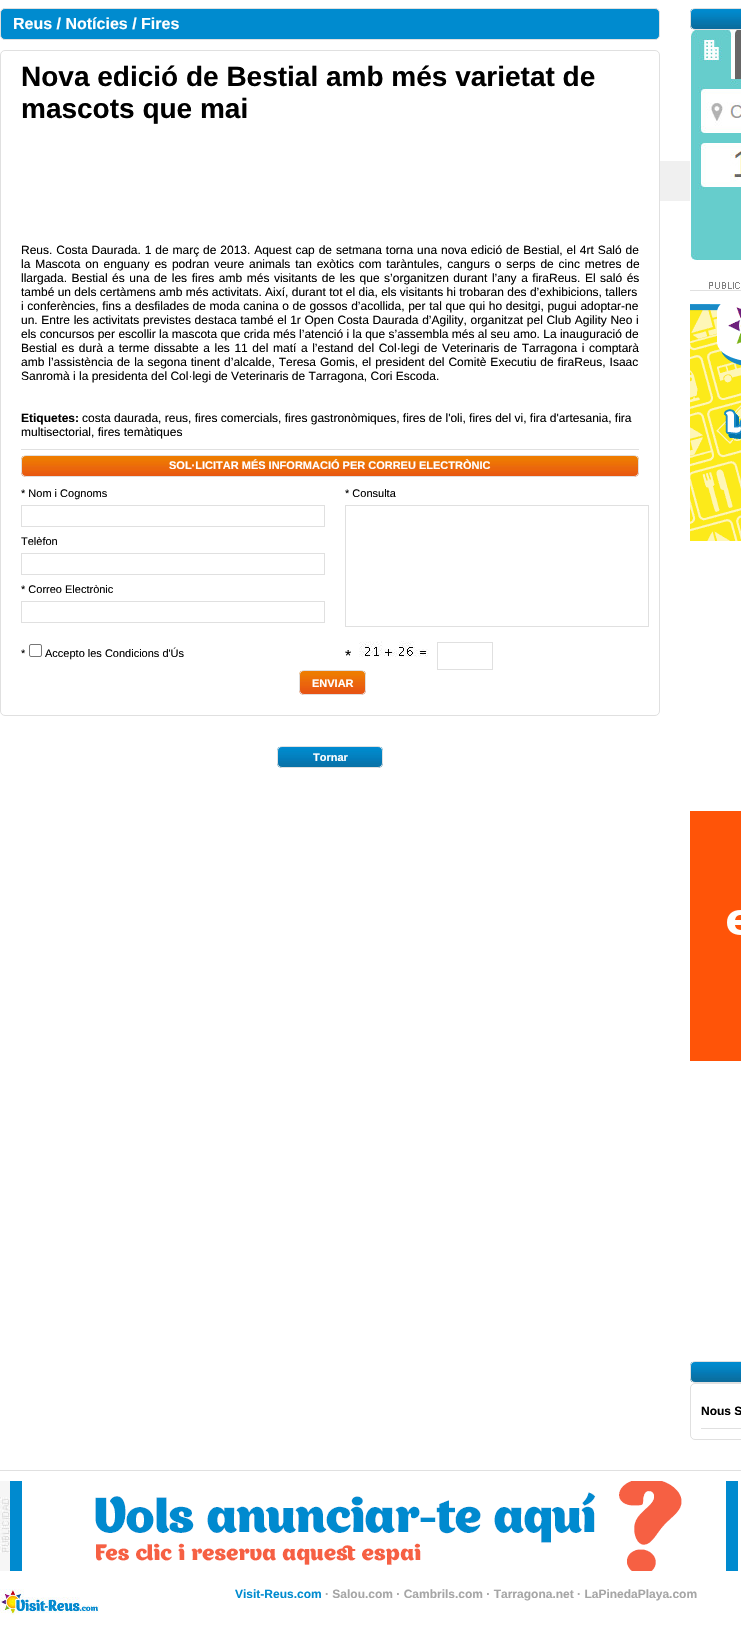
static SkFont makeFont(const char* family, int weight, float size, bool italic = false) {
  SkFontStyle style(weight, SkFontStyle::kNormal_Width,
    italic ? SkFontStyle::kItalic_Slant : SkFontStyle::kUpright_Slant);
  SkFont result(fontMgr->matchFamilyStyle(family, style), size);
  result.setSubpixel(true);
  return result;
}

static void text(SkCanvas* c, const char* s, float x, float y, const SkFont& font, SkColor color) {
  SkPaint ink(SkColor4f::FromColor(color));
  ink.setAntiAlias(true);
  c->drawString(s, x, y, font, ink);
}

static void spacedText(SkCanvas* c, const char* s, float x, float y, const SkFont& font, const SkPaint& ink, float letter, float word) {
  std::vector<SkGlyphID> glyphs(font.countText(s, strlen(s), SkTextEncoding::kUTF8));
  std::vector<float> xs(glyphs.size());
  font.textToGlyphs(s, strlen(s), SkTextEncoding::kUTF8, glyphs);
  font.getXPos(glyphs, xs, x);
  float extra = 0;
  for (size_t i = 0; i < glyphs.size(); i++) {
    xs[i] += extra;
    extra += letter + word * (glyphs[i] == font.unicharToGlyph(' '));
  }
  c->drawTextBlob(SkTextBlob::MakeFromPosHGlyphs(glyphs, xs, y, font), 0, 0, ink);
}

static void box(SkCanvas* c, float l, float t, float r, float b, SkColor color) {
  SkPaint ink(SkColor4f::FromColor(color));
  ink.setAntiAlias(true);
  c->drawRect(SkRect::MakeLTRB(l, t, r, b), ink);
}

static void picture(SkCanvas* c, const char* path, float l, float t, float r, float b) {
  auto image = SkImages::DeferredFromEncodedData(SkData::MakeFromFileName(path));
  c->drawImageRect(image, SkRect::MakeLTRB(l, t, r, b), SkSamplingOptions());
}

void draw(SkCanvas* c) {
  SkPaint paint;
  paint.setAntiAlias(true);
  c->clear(0xffffffff);
  paint.setColor(0xff008bcf);
  c->drawRoundRect(SkRect::MakeLTRB(0.5f, 8.5f, 659.5f, 39.5f), 4.5f, 4.5f, paint);
  paint.setStyle(SkPaint::kStroke_Style);
  paint.setStrokeWidth(1);
  paint.setColor(0xffe0e0e0);
  c->drawRoundRect(SkRect::MakeLTRB(0.5f, 8.5f, 659.5f, 39.5f), 4.5f, 4.5f, paint);
  SkFont face1 = makeFont("Liberation Sans", 700, 16);
  text(c, "Reus / Notícies / Fires", 13, 29, face1, 0xffffffff);
  c->drawRoundRect(SkRect::MakeLTRB(0.5f, 50.5f, 659.5f, 715.5f), 4.5f, 4.5f, paint);
  SkFont face2 = makeFont("Liberation Sans", 700, 28);
  text(c, "Nova edició de Bestial amb més varietat de", 21, 86, face2, 0xff000000);
  text(c, "mascots que mai", 21, 118, face2, 0xff000000);
  SkFont face3 = makeFont("Liberation Sans", 400, 12);
  paint.setStyle(SkPaint::kFill_Style);
  paint.setColor(0xff000000);
  spacedText(c, "Reus. Costa Daurada. 1 de març de 2013. Aquest cap de setmana torna una nova edició de Bestial, el 4rt Saló de", 21, 254, face3, paint, 0, 0.55f);
  spacedText(c, "la Mascota on enguany es podran veure animals tan exòtics com taràntules, cangurs o serps de cinc metres de", 21, 268, face3, paint, 0, 1.5f);
  spacedText(c, "llargada. Bestial és una de les fires amb més visitants de les que s’organitzen durant l’any a firaReus. El saló és", 21, 282, face3, paint, 0, 1.2f);
  text(c, "també un dels certàmens amb més activitats. Així, durant tot el dia, els visitants hi trobaran des d’exhibicions, tallers", 21, 296, face3, 0xff000000);
  spacedText(c, "i conferències, fins a desfilades de moda canina o de gossos d’acollida, per tal que qui ho desitgi, pugui adoptar-ne", 21, 310, face3, paint, 0, 0.3f);
  spacedText(c, "un. Entre les activitats previstes destaca també el 1r Open Costa Daurada d’Agility, organitzat pel Club Agility Neo i", 21, 324, face3, paint, 0, 0.3f);
  text(c, "els concursos per escollir la mascota que crida més l’atenció i la que s’assembla més al seu amo. La inauguració de", 21, 338, face3, 0xff000000);
  spacedText(c, "Bestial es durà a terme dissabte a les 11 del matí a l’estand del Col·legi de Veterinaris de Tarragona i comptarà", 21, 352, face3, paint, 0, 1.25f);
  spacedText(c, "amb l’assistència de la segona tinent d’alcalde, Teresa Gomis, el president del Comitè Executiu de firaReus, Isaac", 21, 366, face3, paint, 0, 0.6f);
  text(c, "Sanromà i la presidenta del Col·legi de Veterinaris de Tarragona, Cori Escoda.", 21, 380, face3, 0xff000000);
  SkFont face4 = makeFont("Liberation Sans", 700, 12);
  text(c, "Etiquetes:", 21, 422, face4, 0xff000000);
  text(c, "costa daurada, reus, fires comercials, fires gastronòmiques, fires de l'oli, fires del vi, fira d'artesania, fira", 82, 422, face3, 0xff000000);
  text(c, "multisectorial, fires temàtiques", 21, 436, face3, 0xff000000);
  box(c, 21, 449, 639, 450, 0xffe0e0e0);
  picture(c, "img_01.png", 21, 456, 639, 477);
  paint.setStyle(SkPaint::kStroke_Style);
  paint.setColor(0xffe0e0e0);
  c->drawRoundRect(SkRect::MakeLTRB(21.5f, 455.5f, 638.5f, 476.5f), 4.5f, 4.5f, paint);
  SkFont face5 = makeFont("Liberation Sans", 700, 11);
  text(c, "SOL·LICITAR MÉS INFORMACIÓ PER CORREU ELECTRÒNIC", 169, 469, face5, 0xffffffff);
  SkFont face6 = makeFont("Liberation Sans", 400, 11);
  text(c, "* Nom i Cognoms", 21, 497, face6, 0xff000000);
  text(c, "* Consulta", 345, 497, face6, 0xff000000);
  c->drawRect(SkRect::MakeLTRB(21.5f, 505.5f, 324.5f, 526.5f), paint);
  c->drawRect(SkRect::MakeLTRB(345.5f, 505.5f, 648.5f, 626.5f), paint);
  text(c, "Telèfon", 21, 545, face6, 0xff000000);
  c->drawRect(SkRect::MakeLTRB(21.5f, 553.5f, 324.5f, 574.5f), paint);
  text(c, "* Correo Electrònic", 21, 593, face6, 0xff000000);
  c->drawRect(SkRect::MakeLTRB(21.5f, 601.5f, 324.5f, 622.5f), paint);
  text(c, "*", 21, 657, face6, 0xff000000);
  paint.setColor(0xff767676);
  c->drawRoundRect(SkRect::MakeLTRB(29.5f, 644.5f, 41.5f, 656.5f), 1.5f, 1.5f, paint);
  text(c, "Accepto les Condicions d'Ús", 45, 657, face6, 0xff000000);
  SkFont face7 = makeFont("Liberation Sans", 400, 16);
  text(c, "*", 345, 661, face7, 0xff000000);
  picture(c, "img_02.png", 359, 641, 429, 657);
  paint.setColor(0xffe0e0e0);
  c->drawRect(SkRect::MakeLTRB(437.5f, 642.5f, 492.5f, 669.5f), paint);
  picture(c, "img_03.png", 299, 671, 366, 695);
  c->drawRoundRect(SkRect::MakeLTRB(299.5f, 670.5f, 365.5f, 694.5f), 4.5f, 4.5f, paint);
  text(c, "ENVIAR", 312, 687, face5, 0xffffffff);
  picture(c, "img_04.png", 277, 747, 383, 768);
  c->drawRoundRect(SkRect::MakeLTRB(277.5f, 746.5f, 382.5f, 767.5f), 4.5f, 4.5f, paint);
  text(c, "Tornar", 313, 761, face5, 0xffffffff);
  picture(c, "img_05.png", 690, 9, 741, 29);
  c->drawRoundRect(SkRect::MakeLTRB(690.5f, 8.5f, 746.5f, 29.5f), 4.5f, 4.5f, paint);
  picture(c, "img_06.png", 690, 30, 741, 260);
  picture(c, "img_07.png", 707, 281, 740, 289);
  box(c, 690, 290, 741, 291, 0xffe0e0e0);
  picture(c, "img_08.png", 690, 304, 741, 541);
  picture(c, "img_09.png", 690, 811, 741, 1061);
  picture(c, "img_05.png", 690, 1362, 741, 1382);
  c->drawRoundRect(SkRect::MakeLTRB(690.5f, 1361.5f, 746.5f, 1382.5f), 4.5f, 4.5f, paint);
  c->drawRoundRect(SkRect::MakeLTRB(690.5f, 1383.5f, 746.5f, 1439.5f), 4.5f, 4.5f, paint);
  box(c, 701, 1428, 741, 1429, 0xffe0e0e0);
  text(c, "Nous S", 701, 1415, face4, 0xff000000);
  box(c, 660, 161, 690, 201, 0xfff0f0f0);
  box(c, 0, 1470, 741, 1471, 0xffe0e0e0);
  picture(c, "img_10.png", 0, 1481, 10, 1571);
  picture(c, "img_11.png", 10, 1481, 738, 1571);
  picture(c, "img_12.png", 0, 1589, 99, 1615);
  text(c, "Visit-Reus.com", 235, 1598, face4, 0xff008bcf);
  text(c, "· Salou.com · Cambrils.com · Tarragona.net · LaPinedaPlaya.com", 325, 1598, face4, 0xffa6a6a6);
}
